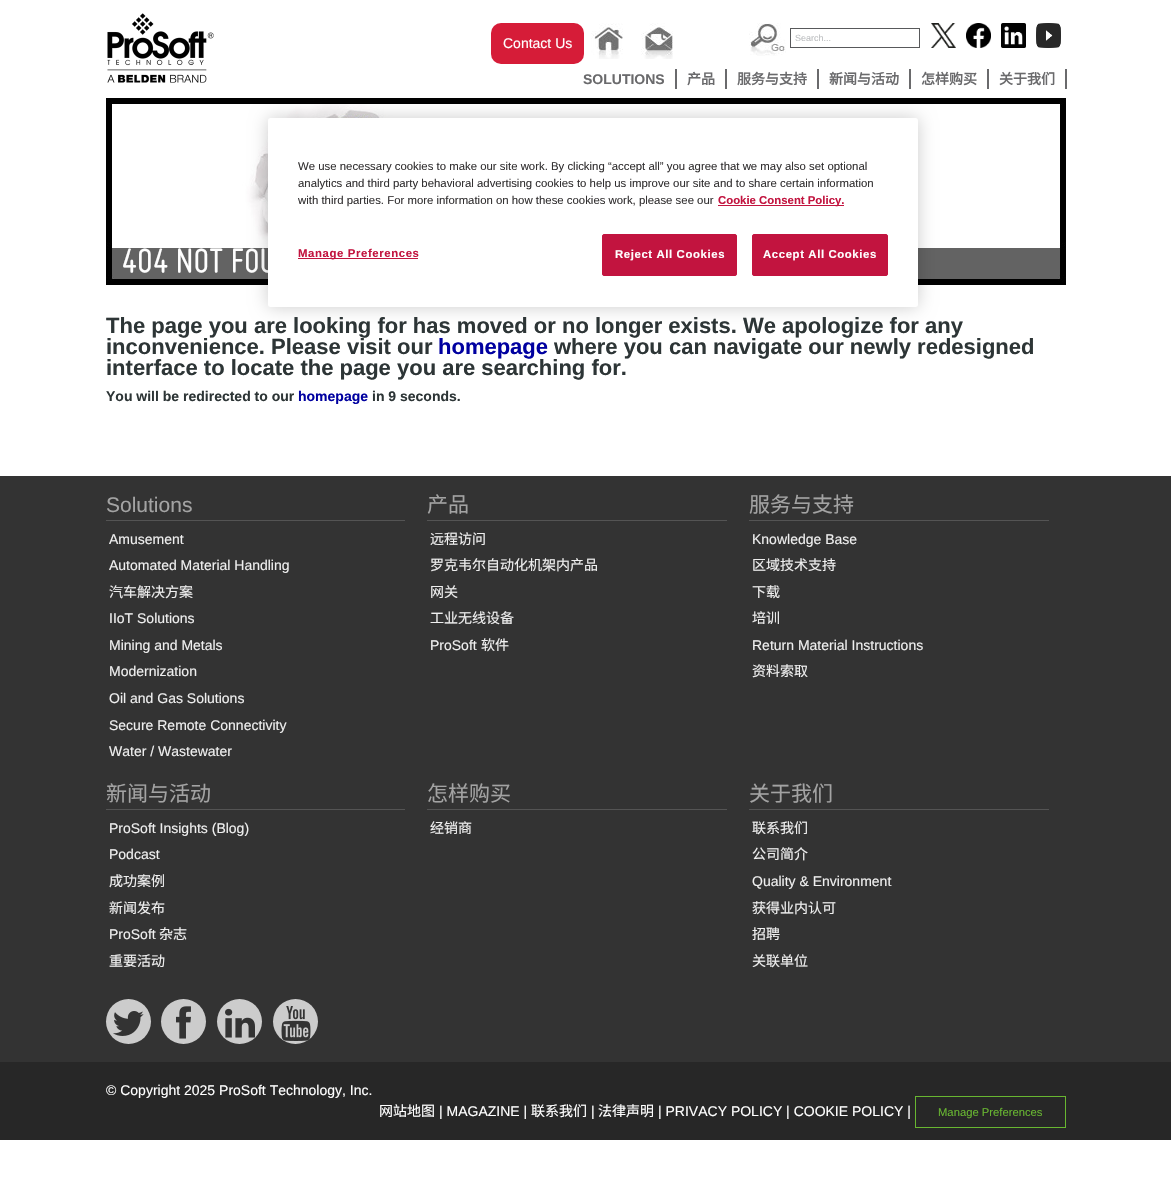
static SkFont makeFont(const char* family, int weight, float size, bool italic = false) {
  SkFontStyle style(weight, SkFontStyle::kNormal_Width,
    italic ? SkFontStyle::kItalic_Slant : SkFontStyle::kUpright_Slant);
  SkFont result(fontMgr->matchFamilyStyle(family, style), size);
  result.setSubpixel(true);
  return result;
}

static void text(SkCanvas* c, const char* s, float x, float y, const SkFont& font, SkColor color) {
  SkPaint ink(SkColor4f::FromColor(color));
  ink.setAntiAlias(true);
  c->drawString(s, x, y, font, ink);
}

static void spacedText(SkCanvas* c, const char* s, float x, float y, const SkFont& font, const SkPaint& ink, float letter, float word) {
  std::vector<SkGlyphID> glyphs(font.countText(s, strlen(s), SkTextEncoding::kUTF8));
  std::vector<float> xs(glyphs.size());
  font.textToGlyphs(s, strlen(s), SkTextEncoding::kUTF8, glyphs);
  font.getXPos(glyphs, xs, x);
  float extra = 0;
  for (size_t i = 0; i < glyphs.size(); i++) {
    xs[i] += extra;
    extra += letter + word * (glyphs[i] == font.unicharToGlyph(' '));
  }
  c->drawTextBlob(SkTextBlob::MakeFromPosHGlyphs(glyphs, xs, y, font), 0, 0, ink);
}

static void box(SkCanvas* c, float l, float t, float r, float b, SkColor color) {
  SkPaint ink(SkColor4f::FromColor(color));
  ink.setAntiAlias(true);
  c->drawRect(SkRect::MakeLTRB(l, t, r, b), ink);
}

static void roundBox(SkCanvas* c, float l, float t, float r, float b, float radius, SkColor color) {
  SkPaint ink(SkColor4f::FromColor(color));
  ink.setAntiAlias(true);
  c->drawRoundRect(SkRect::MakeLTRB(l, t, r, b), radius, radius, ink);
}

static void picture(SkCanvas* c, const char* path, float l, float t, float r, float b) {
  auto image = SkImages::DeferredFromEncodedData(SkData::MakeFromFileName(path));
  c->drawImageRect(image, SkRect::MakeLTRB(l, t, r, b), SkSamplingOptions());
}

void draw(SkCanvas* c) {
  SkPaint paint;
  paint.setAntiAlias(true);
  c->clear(0xffffffff);
  picture(c, "img_01.png", 107, 13, 214, 83);
  roundBox(c, 491, 23, 584, 64, 10, 0xffd61c38);
  SkFont face1 = makeFont("Liberation Sans", 400, 14);
  text(c, "Contact Us", 503, 48, face1, 0xffffffff);
  picture(c, "img_02.png", 591, 23, 623, 59);
  picture(c, "img_03.png", 641, 23, 673, 59);
  picture(c, "img_04.png", 749, 23, 786, 56);
  paint.setStyle(SkPaint::kStroke_Style);
  paint.setStrokeWidth(1);
  paint.setColor(0xff58595b);
  c->drawRect(SkRect::MakeLTRB(790.5f, 28.5f, 919.5f, 47.5f), paint);
  SkFont face2 = makeFont("Liberation Sans", 400, 9);
  text(c, "Search...", 795, 41, face2, 0xffbcbec0);
  picture(c, "img_05.png", 931, 23, 956, 48);
  picture(c, "img_06.png", 966, 23, 991, 48);
  picture(c, "img_07.png", 1001, 23, 1026, 48);
  picture(c, "img_08.png", 1036, 23, 1061, 48);
  box(c, 675, 69, 677, 89, 0xff6a6a6c);
  SkFont face3 = makeFont("Liberation Sans", 700, 14);
  text(c, "SOLUTIONS", 583, 84, face3, 0xff6a6a6c);
  box(c, 725, 69, 727, 89, 0xff6a6a6c);
  SkFont face4 = makeFont("Noto Sans CJK SC", 700, 14);
  text(c, "产品", 687, 84, face4, 0xff6a6a6c);
  box(c, 817, 69, 819, 89, 0xff6a6a6c);
  text(c, "服务与支持", 737, 84, face4, 0xff6a6a6c);
  box(c, 909, 69, 911, 89, 0xff6a6a6c);
  text(c, "新闻与活动", 829, 84, face4, 0xff6a6a6c);
  box(c, 987, 69, 989, 89, 0xff6a6a6c);
  text(c, "怎样购买", 921, 84, face4, 0xff6a6a6c);
  box(c, 1065, 69, 1067, 89, 0xff6a6a6c);
  text(c, "关于我们", 999, 84, face4, 0xff6a6a6c);
  picture(c, "img_09.png", 106, 98, 1066, 285);
  SkFont face5 = makeFont("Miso", 700, 37.5f, true);
  text(c, "404 NOT FOU", 121, 273, face5, 0xffffffff);
  SkFont face6 = makeFont("Liberation Sans", 700, 22);
  text(c, "The page you are looking for has moved or no longer exists. We apologize for any", 106, 333, face6, 0xff2d3536);
  text(c, "inconvenience. Please visit our", 106, 354, face6, 0xff2d3536);
  text(c, "homepage", 438, 354, face6, 0xff0000a0);
  text(c, "where you can navigate our newly redesigned", 554, 354, face6, 0xff2d3536);
  text(c, "interface to locate the page you are searching for.", 106, 375, face6, 0xff2d3536);
  text(c, "You will be redirected to our", 106, 401, face3, 0xff2d3536);
  text(c, "homepage", 298, 401, face3, 0xff0000a0);
  text(c, "in 9 seconds.", 372, 401, face3, 0xff2d3536);
  paint.setStyle(SkPaint::kFill_Style);
  paint.setColor(0x33000000);
  paint.setMaskFilter(SkMaskFilter::MakeBlur(kNormal_SkBlurStyle, 9));
  c->drawRoundRect(SkRect::MakeLTRB(268, 118, 918, 307), 2.5f, 2.5f, paint);
  paint.setMaskFilter(nullptr);
  roundBox(c, 268, 118, 918, 307, 2.5f, 0xffffffff);
  SkFont face7 = makeFont("Liberation Sans", 400, 11.38f);
  text(c, "We use necessary cookies to make our site work. By clicking “accept all” you agree that we may also set optional", 298, 170, face7, 0xff333132);
  text(c, "analytics and third party behavioral advertising cookies to help us improve our site and to share certain information", 298, 187, face7, 0xff333132);
  text(c, "with third parties. For more information on how these cookies work, please see our", 298, 204, face7, 0xff333132);
  box(c, 718, 205, 844, 206, 0xffc2143f);
  SkFont face8 = makeFont("Liberation Sans", 700, 11.38f);
  text(c, "Cookie Consent Policy.", 718, 204, face8, 0xffc2143f);
  box(c, 298, 258, 418, 259, 0xffc2143f);
  paint.setColor(0xffc2143f);
  spacedText(c, "Manage Preferences", 298, 257, face8, paint, 0.6f, 0);
  c->drawRoundRect(SkRect::MakeLTRB(602.5f, 234.5f, 736.5f, 275.5f), 1.5f, 1.5f, paint);
  paint.setStyle(SkPaint::kStroke_Style);
  c->drawRoundRect(SkRect::MakeLTRB(602.5f, 234.5f, 736.5f, 275.5f), 1.5f, 1.5f, paint);
  paint.setStyle(SkPaint::kFill_Style);
  paint.setColor(0xffffffff);
  spacedText(c, "Reject All Cookies", 615, 258, face8, paint, 0.6f, 0);
  paint.setColor(0xffc2143f);
  c->drawRoundRect(SkRect::MakeLTRB(752.5f, 234.5f, 887.5f, 275.5f), 1.5f, 1.5f, paint);
  paint.setStyle(SkPaint::kStroke_Style);
  c->drawRoundRect(SkRect::MakeLTRB(752.5f, 234.5f, 887.5f, 275.5f), 1.5f, 1.5f, paint);
  paint.setStyle(SkPaint::kFill_Style);
  paint.setColor(0xffffffff);
  spacedText(c, "Accept All Cookies", 763, 258, face8, paint, 0.6f, 0);
  box(c, 0, 476, 1171, 1062, 0xff333333);
  box(c, 106, 520, 405, 521, 0xff545454);
  SkFont face9 = makeFont("Liberation Sans", 400, 21);
  text(c, "Solutions", 106, 512, face9, 0xffa3a3a3);
  text(c, "Amusement", 109, 544, face1, 0xffefefef);
  text(c, "Automated Material Handling", 109, 570, face1, 0xffefefef);
  SkFont face10 = makeFont("Noto Sans CJK SC", 400, 14);
  text(c, "汽车解决方案", 109, 597, face10, 0xffefefef);
  text(c, "IIoT Solutions", 109, 623, face1, 0xffefefef);
  text(c, "Mining and Metals", 109, 650, face1, 0xffefefef);
  text(c, "Modernization", 109, 676, face1, 0xffefefef);
  text(c, "Oil and Gas Solutions", 109, 703, face1, 0xffefefef);
  text(c, "Secure Remote Connectivity", 109, 730, face1, 0xffefefef);
  text(c, "Water / Wastewater", 109, 756, face1, 0xffefefef);
  box(c, 427, 520, 727, 521, 0xff545454);
  SkFont face11 = makeFont("Noto Sans CJK SC", 400, 21);
  text(c, "产品", 427, 512, face11, 0xffa3a3a3);
  text(c, "远程访问", 430, 544, face10, 0xffefefef);
  text(c, "罗克韦尔自动化机架内产品", 430, 570, face10, 0xffefefef);
  text(c, "网关", 430, 597, face10, 0xffefefef);
  text(c, "工业无线设备", 430, 623, face10, 0xffefefef);
  text(c, "ProSoft", 430, 650, face1, 0xffefefef);
  text(c, "软件", 481, 650, face10, 0xffefefef);
  box(c, 749, 520, 1049, 521, 0xff545454);
  text(c, "服务与支持", 749, 512, face11, 0xffa3a3a3);
  text(c, "Knowledge Base", 752, 544, face1, 0xffefefef);
  text(c, "区域技术支持", 752, 570, face10, 0xffefefef);
  text(c, "下载", 752, 597, face10, 0xffefefef);
  text(c, "培训", 752, 623, face10, 0xffefefef);
  text(c, "Return Material Instructions", 752, 650, face1, 0xffefefef);
  text(c, "资料索取", 752, 676, face10, 0xffefefef);
  box(c, 106, 809, 405, 810, 0xff545454);
  text(c, "新闻与活动", 106, 801, face11, 0xffa3a3a3);
  text(c, "ProSoft Insights (Blog)", 109, 833, face1, 0xffefefef);
  text(c, "Podcast", 109, 859, face1, 0xffefefef);
  text(c, "成功案例", 109, 886, face10, 0xffefefef);
  text(c, "新闻发布", 109, 913, face10, 0xffefefef);
  text(c, "ProSoft", 109, 939, face1, 0xffefefef);
  text(c, "杂志", 159, 939, face10, 0xffefefef);
  text(c, "重要活动", 109, 966, face10, 0xffefefef);
  box(c, 427, 809, 727, 810, 0xff545454);
  text(c, "怎样购买", 427, 801, face11, 0xffa3a3a3);
  text(c, "经销商", 430, 833, face10, 0xffefefef);
  box(c, 749, 809, 1049, 810, 0xff545454);
  text(c, "关于我们", 749, 801, face11, 0xffa3a3a3);
  text(c, "联系我们", 752, 833, face10, 0xffefefef);
  text(c, "公司简介", 752, 859, face10, 0xffefefef);
  text(c, "Quality & Environment", 752, 886, face1, 0xffefefef);
  text(c, "获得业内认可", 752, 913, face10, 0xffefefef);
  text(c, "招聘", 752, 939, face10, 0xffefefef);
  text(c, "关联单位", 752, 966, face10, 0xffefefef);
  paint.setColor(0xffcccccc);
  c->drawCircle(128.5f, 1021.5f, 22.5f, paint);
  picture(c, "img_10.png", 113, 1011, 144, 1036);
  c->drawCircle(183.5f, 1021.5f, 22.5f, paint);
  picture(c, "img_11.png", 176, 1006, 191, 1039);
  c->drawCircle(239.5f, 1021.5f, 22.5f, paint);
  picture(c, "img_12.png", 225, 1008, 255, 1038);
  c->drawCircle(295.5f, 1021.5f, 22.5f, paint);
  picture(c, "img_13.png", 281, 1006, 311, 1041);
  box(c, 0, 1062, 1171, 1140, 0xff272727);
  text(c, "© Copyright 2025 ProSoft Technology, Inc.", 106, 1095, face1, 0xffffffff);
  text(c, "网站地图", 379, 1116, face10, 0xffffffff);
  text(c, "| MAGAZINE |", 439, 1116, face1, 0xffffffff);
  text(c, "联系我们", 531, 1116, face10, 0xffffffff);
  text(c, "|", 591, 1116, face1, 0xffffffff);
  text(c, "法律声明", 598, 1116, face10, 0xffffffff);
  text(c, "| PRIVACY POLICY | COOKIE POLICY |", 658, 1116, face1, 0xffffffff);
  paint.setStyle(SkPaint::kStroke_Style);
  paint.setColor(0xff68b631);
  c->drawRect(SkRect::MakeLTRB(915.5f, 1096.5f, 1065.5f, 1127.5f), paint);
  SkFont face12 = makeFont("Liberation Sans", 400, 11.25f);
  text(c, "Manage Preferences", 938, 1116, face12, 0xff68b631);
}
